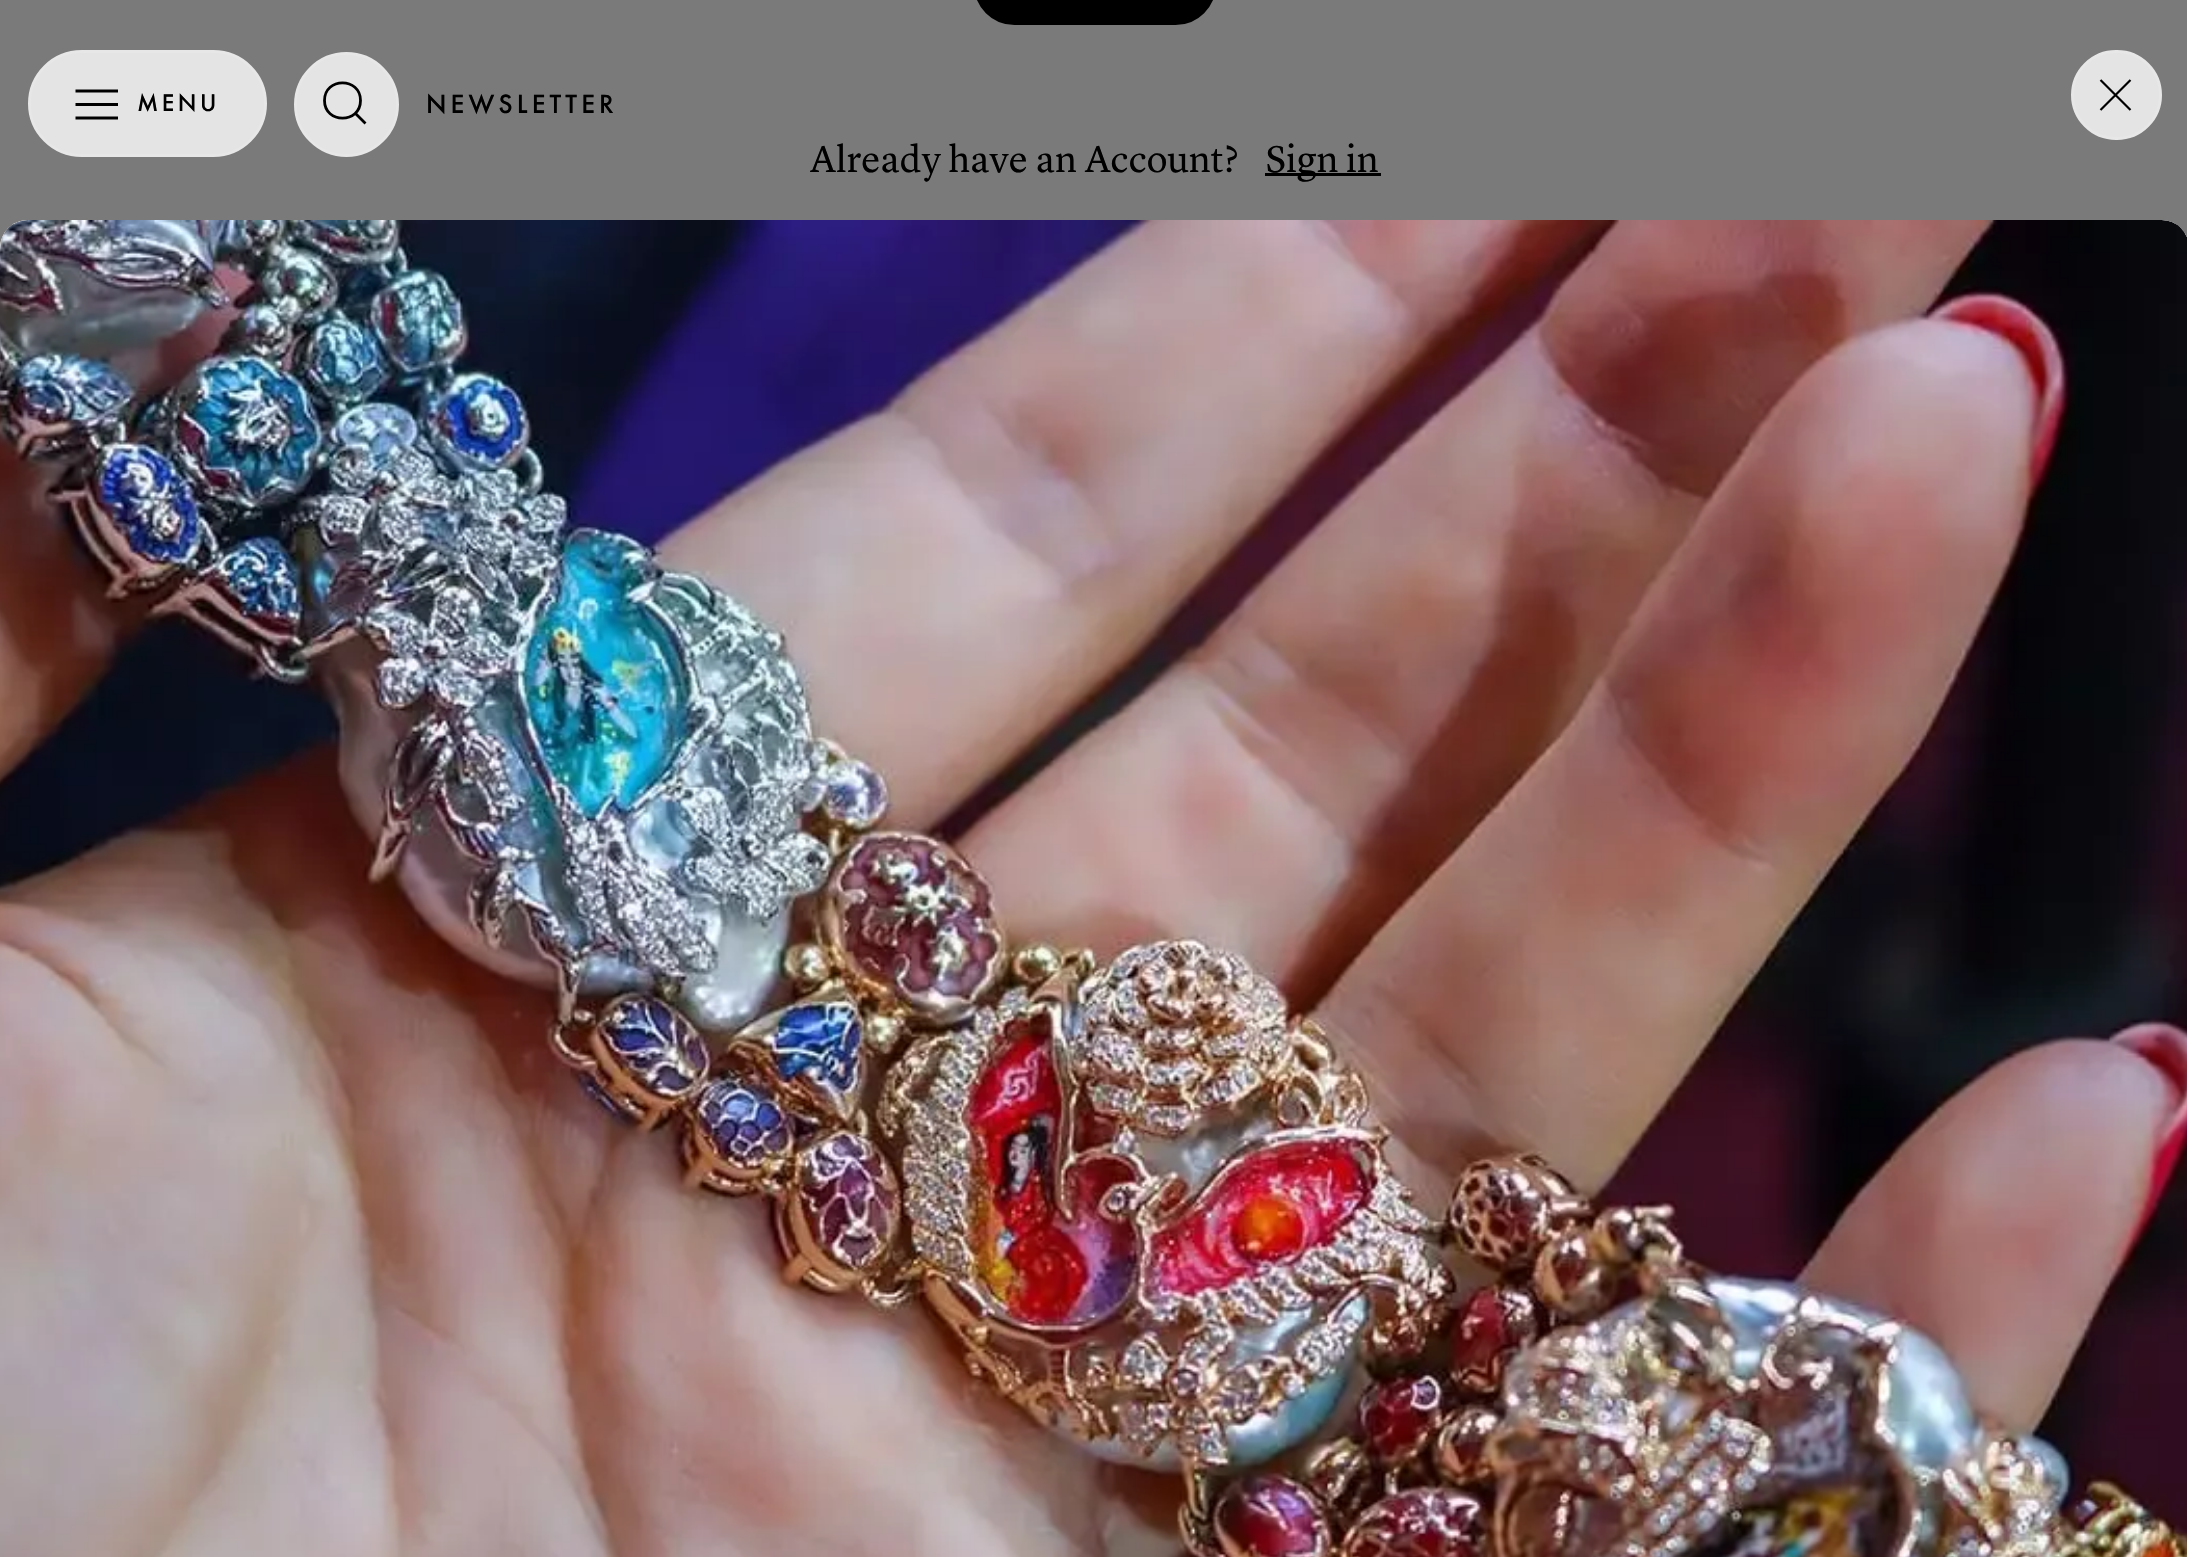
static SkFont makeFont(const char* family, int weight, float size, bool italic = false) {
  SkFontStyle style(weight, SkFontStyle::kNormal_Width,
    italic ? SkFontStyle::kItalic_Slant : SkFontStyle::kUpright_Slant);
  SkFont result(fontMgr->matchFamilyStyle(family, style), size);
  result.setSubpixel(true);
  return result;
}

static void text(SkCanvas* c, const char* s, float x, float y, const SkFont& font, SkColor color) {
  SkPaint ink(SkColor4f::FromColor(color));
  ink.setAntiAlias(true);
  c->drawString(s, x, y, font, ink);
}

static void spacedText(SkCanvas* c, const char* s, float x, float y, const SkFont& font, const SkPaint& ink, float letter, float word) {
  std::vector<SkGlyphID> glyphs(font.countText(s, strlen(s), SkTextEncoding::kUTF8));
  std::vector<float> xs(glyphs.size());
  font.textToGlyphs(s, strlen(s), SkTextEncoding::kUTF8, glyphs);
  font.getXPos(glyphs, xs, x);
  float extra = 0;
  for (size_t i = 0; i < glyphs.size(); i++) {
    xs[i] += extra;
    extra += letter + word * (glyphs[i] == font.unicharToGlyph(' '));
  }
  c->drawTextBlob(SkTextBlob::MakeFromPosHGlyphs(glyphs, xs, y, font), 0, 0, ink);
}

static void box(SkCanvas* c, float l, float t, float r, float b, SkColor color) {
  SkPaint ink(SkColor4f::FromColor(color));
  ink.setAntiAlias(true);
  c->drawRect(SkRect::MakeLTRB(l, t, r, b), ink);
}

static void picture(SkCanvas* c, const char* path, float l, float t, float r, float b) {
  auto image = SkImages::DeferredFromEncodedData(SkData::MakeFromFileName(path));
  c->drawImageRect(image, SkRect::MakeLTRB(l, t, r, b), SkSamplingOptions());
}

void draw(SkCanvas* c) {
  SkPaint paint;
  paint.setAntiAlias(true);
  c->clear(0xff7b7a7a);
  paint.setColor(0xffe5e4e4);
  c->drawRoundRect(SkRect::MakeLTRB(29.5f, 51.5f, 265.5f, 155.5f), 52, 52, paint);
  paint.setStyle(SkPaint::kStroke_Style);
  paint.setStrokeWidth(3);
  paint.setColor(0xffe7e7e7);
  c->drawRoundRect(SkRect::MakeLTRB(29.5f, 51.5f, 265.5f, 155.5f), 52, 52, paint);
  paint.setStrokeWidth(2.8f);
  paint.setColor(0xff000000);
  c->drawPath(SkPathBuilder().moveTo(75.5f, 91).lineTo(118, 91).moveTo(75.5f, 104.5f).lineTo(118, 104.5f).moveTo(75.5f, 118).lineTo(118, 118).detach(), paint);
  SkFont face1 = makeFont("Futura PT", 500, 25);
  paint.setStyle(SkPaint::kFill_Style);
  spacedText(c, "MENU", 137, 111, face1, paint, 3.5f, 0);
  paint.setColor(0xffe5e4e4);
  c->drawCircle(346.5f, 104.5f, 51, paint);
  paint.setStyle(SkPaint::kStroke_Style);
  paint.setStrokeWidth(3);
  paint.setColor(0xffe7e7e7);
  c->drawCircle(346.5f, 104.5f, 51, paint);
  paint.setStrokeWidth(2.8f);
  paint.setColor(0xff000000);
  c->drawPath(SkPathBuilder().moveTo(354.5f, 112.5f).lineTo(365.5f, 123.5f).moveTo(360.5f, 100.5f).cubicTo(360.5f, 124, 324.5f, 124, 324.5f, 100.5f).cubicTo(324.5f, 77, 360.5f, 77, 360.5f, 100.5f).close().detach(), paint);
  SkFont face2 = makeFont("Futura PT", 500, 27.5f);
  paint.setStyle(SkPaint::kFill_Style);
  spacedText(c, "NEWSLETTER", 426, 113, face2, paint, 4.1f, 0);
  paint.setColor(0xffe5e4e4);
  c->drawRoundRect(SkRect::MakeLTRB(2072.5f, 51.5f, 2160.5f, 138.5f), 43.5f, 43.5f, paint);
  paint.setStyle(SkPaint::kStroke_Style);
  paint.setStrokeWidth(3);
  paint.setColor(0xffe7e7e7);
  c->drawRoundRect(SkRect::MakeLTRB(2072.5f, 51.5f, 2160.5f, 138.5f), 43.5f, 43.5f, paint);
  paint.setStrokeWidth(2.2f);
  paint.setColor(0xff000000);
  c->drawPath(SkPathBuilder().moveTo(2100.5f, 80).lineTo(2130.5f, 110).moveTo(2100.5f, 110).lineTo(2130.5f, 80).detach(), paint);
  paint.setStyle(SkPaint::kFill_Style);
  c->drawRoundRect(SkRect::MakeLTRB(975.5f, -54.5f, 1214.5f, 23.5f), 51, 51, paint);
  paint.setStyle(SkPaint::kStroke_Style);
  paint.setStrokeWidth(3);
  c->drawRoundRect(SkRect::MakeLTRB(975.5f, -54.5f, 1214.5f, 23.5f), 51, 51, paint);
  SkFont face3 = makeFont("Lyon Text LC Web", 400, 38.5f);
  text(c, "Already have an Account?", 810, 172, face3, 0xff000000);
  box(c, 1265, 173, 1381, 176, 0xff000000);
  text(c, "Sign in", 1266, 172, face3, 0xff000000);
  paint.setStyle(SkPaint::kFill_Style);
  {
    const SkColor colors[] = {0xffebebeb, 0xfff5f5f5, 0xffebebeb};
    const float stops[] = {0.25f, 0.5f, 0.75f};
    const SkPoint ends[] = {{193, 28}, {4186, 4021}};
    paint.setShader(SkGradientShader::MakeLinear(ends, colors, stops, 3, SkTileMode::kClamp));
    paint.setAlpha(255);
  }
  c->drawPath(SkPathBuilder().moveTo(28, 220).lineTo(2161, 220).cubicTo(2176.5f, 220, 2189, 232.5f, 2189, 248).lineTo(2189, 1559).lineTo(0, 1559).lineTo(0, 248).cubicTo(0, 232.5f, 12.5f, 220, 28, 220).close().detach(), paint);
  picture(c, "img_01.png", 0, 220, 2187, 1557);
}
